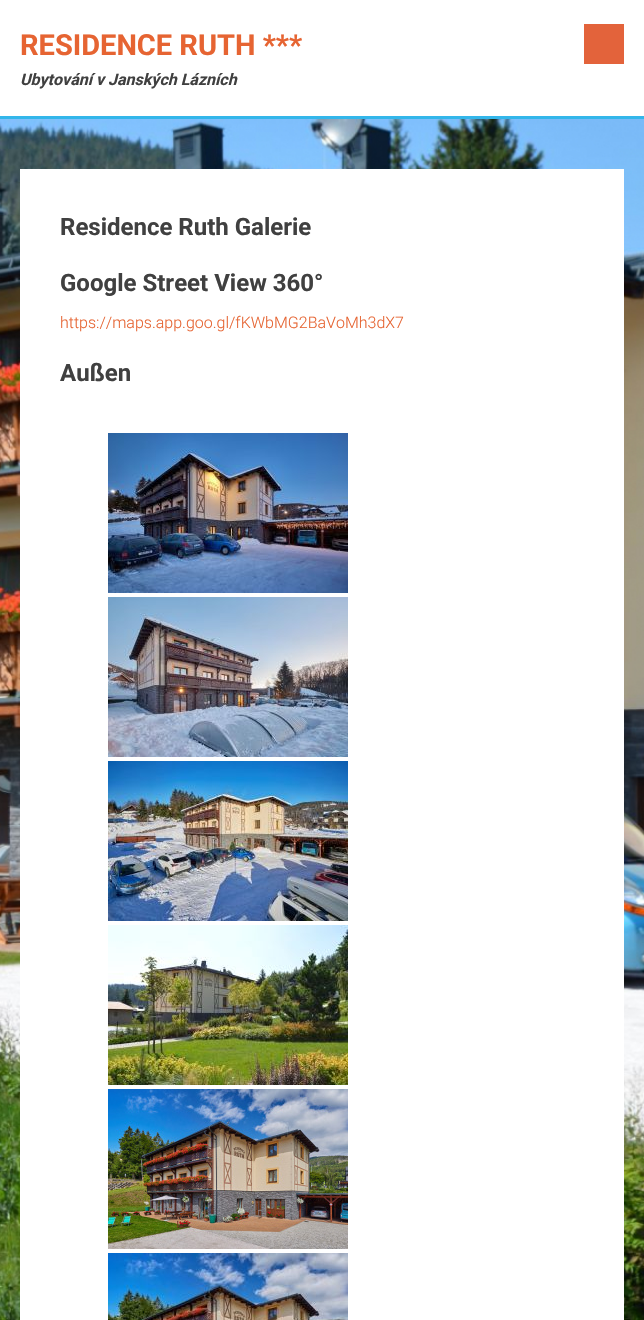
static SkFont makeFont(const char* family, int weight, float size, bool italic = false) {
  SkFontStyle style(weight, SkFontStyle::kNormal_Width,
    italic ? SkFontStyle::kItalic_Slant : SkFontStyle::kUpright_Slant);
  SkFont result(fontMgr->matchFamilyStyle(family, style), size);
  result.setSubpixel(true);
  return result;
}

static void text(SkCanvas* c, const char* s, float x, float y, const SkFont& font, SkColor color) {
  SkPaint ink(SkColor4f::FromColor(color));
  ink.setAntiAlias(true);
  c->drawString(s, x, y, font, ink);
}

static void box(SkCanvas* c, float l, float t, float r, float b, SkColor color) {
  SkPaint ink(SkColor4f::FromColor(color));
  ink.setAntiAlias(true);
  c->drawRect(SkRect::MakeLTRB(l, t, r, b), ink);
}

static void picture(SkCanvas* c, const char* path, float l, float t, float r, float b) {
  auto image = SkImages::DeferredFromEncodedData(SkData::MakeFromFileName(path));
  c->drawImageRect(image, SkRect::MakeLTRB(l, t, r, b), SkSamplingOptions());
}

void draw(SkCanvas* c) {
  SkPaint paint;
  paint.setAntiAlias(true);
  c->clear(0xffffffff);
  picture(c, "img_01.png", 0, 119, 644, 1320);
  box(c, 0, 116, 644, 119, 0xff33b6ea);
  SkFont face1 = makeFont("Roboto", 700, 29);
  text(c, "RESIDENCE RUTH ***", 20, 55, face1, 0xffe66432);
  SkFont face2 = makeFont("Roboto", 700, 16, true);
  text(c, "Ubytování v Janských Lázních", 20, 85, face2, 0xff404040);
  box(c, 584, 24, 624, 64, 0xffe3633b);
  box(c, 20, 169, 624, 1320, 0xffffffff);
  SkFont face3 = makeFont("Roboto", 700, 24);
  text(c, "Residence Ruth Galerie", 60, 235, face3, 0xff404040);
  text(c, "Google Street View 360°", 60, 291, face3, 0xff404040);
  SkFont face4 = makeFont("Roboto", 300, 16);
  text(c, "https://maps.app.goo.gl/fKWbMG2BaVoMh3dX7", 60, 328, face4, 0xffe66432);
  text(c, "Außen", 60, 381, face3, 0xff404040);
  picture(c, "img_02.png", 108, 433, 348, 593);
  picture(c, "img_03.png", 108, 597, 348, 757);
  picture(c, "img_04.png", 108, 761, 348, 921);
  picture(c, "img_05.png", 108, 925, 348, 1085);
  picture(c, "img_06.png", 108, 1089, 348, 1249);
  picture(c, "img_07.png", 108, 1253, 348, 1320);
}
